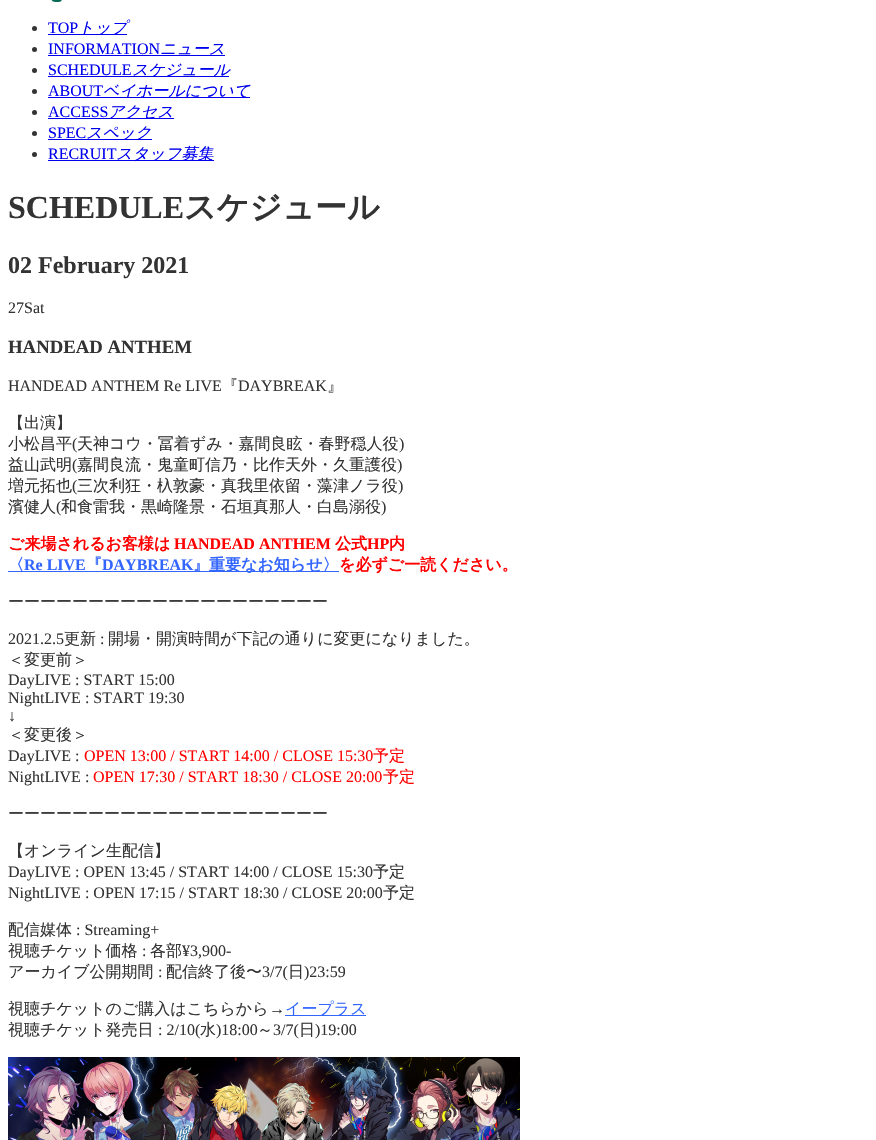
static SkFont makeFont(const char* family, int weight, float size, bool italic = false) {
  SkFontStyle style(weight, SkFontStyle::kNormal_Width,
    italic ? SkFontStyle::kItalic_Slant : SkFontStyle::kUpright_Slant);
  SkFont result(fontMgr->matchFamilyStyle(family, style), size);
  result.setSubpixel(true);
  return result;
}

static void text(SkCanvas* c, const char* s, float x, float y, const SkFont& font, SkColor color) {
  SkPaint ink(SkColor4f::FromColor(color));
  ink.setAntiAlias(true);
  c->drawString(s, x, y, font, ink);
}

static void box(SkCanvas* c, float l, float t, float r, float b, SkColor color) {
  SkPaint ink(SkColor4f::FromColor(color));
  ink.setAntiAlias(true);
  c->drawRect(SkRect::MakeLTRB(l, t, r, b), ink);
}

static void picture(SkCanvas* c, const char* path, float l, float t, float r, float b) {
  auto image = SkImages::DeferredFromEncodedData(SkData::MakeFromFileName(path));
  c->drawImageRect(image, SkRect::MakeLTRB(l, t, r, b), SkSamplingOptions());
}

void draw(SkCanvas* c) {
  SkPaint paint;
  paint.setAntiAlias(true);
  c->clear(0xffffffff);
  picture(c, "img_01.png", 51, 0, 62, 2);
  paint.setColor(0xff333333);
  c->drawCircle(34.5f, 28.5f, 2.5f, paint);
  SkFont face1 = makeFont("Liberation Serif", 400, 16);
  text(c, "TOP", 48, 33, face1, 0xff0000ee);
  box(c, 48, 34, 127, 35, 0xff0000ee);
  SkFont face2 = makeFont("WenQuanYi Zen Hei", 500, 16, true);
  text(c, "トップ", 78, 33, face2, 0xff0000ee);
  c->drawCircle(34.5f, 49.5f, 2.5f, paint);
  text(c, "INFORMATION", 48, 54, face1, 0xff0000ee);
  box(c, 48, 55, 225, 56, 0xff0000ee);
  text(c, "ニュース", 160, 54, face2, 0xff0000ee);
  c->drawCircle(34.5f, 70.5f, 2.5f, paint);
  text(c, "SCHEDULE", 48, 75, face1, 0xff0000ee);
  box(c, 48, 76, 229, 77, 0xff0000ee);
  text(c, "スケジュール", 132, 75, face2, 0xff0000ee);
  c->drawCircle(34.5f, 91.5f, 2.5f, paint);
  text(c, "ABOUT", 48, 96, face1, 0xff0000ee);
  box(c, 48, 97, 250, 98, 0xff0000ee);
  text(c, "ベイホールについて", 103, 96, face2, 0xff0000ee);
  c->drawCircle(34.5f, 112.5f, 2.5f, paint);
  text(c, "ACCESS", 48, 117, face1, 0xff0000ee);
  box(c, 48, 118, 174, 119, 0xff0000ee);
  text(c, "アクセス", 108, 117, face2, 0xff0000ee);
  c->drawCircle(34.5f, 133.5f, 2.5f, paint);
  text(c, "SPEC", 48, 138, face1, 0xff0000ee);
  box(c, 48, 139, 152, 140, 0xff0000ee);
  text(c, "スペック", 86, 138, face2, 0xff0000ee);
  c->drawCircle(34.5f, 154.5f, 2.5f, paint);
  text(c, "RECRUIT", 48, 159, face1, 0xff0000ee);
  box(c, 48, 160, 214, 161, 0xff0000ee);
  text(c, "スタッフ募集", 116, 159, face2, 0xff0000ee);
  SkFont face3 = makeFont("Liberation Serif", 700, 32);
  text(c, "SCHEDULE", 8, 218, face3, 0xff333333);
  SkFont face4 = makeFont("WenQuanYi Zen Hei", 700, 32);
  text(c, "スケジュール", 184, 218, face4, 0xff333333);
  SkFont face5 = makeFont("Liberation Serif", 700, 24);
  text(c, "02 February 2021", 8, 273, face5, 0xff333333);
  text(c, "27Sat", 8, 313, face1, 0xff333333);
  SkFont face6 = makeFont("Liberation Serif", 700, 18.75f);
  text(c, "HANDEAD ANTHEM", 8, 353, face6, 0xff333333);
  text(c, "HANDEAD ANTHEM Re LIVE", 8, 391, face1, 0xff333333);
  SkFont face7 = makeFont("WenQuanYi Zen Hei", 500, 16);
  text(c, "『", 222, 391, face7, 0xff333333);
  text(c, "DAYBREAK", 238, 391, face1, 0xff333333);
  text(c, "』", 327, 391, face7, 0xff333333);
  text(c, "【出演】", 8, 428, face7, 0xff333333);
  text(c, "小松昌平", 8, 449, face7, 0xff333333);
  text(c, "(", 72, 449, face1, 0xff333333);
  text(c, "天神コウ・冨着ずみ・嘉間良眩・春野穏人役", 77, 449, face7, 0xff333333);
  text(c, ")", 399, 449, face1, 0xff333333);
  text(c, "益山武明", 8, 470, face7, 0xff333333);
  text(c, "(", 72, 470, face1, 0xff333333);
  text(c, "嘉間良流・鬼童町信乃・比作天外・久重護役", 77, 470, face7, 0xff333333);
  text(c, ")", 397, 470, face1, 0xff333333);
  text(c, "増元拓也", 8, 491, face7, 0xff333333);
  text(c, "(", 72, 491, face1, 0xff333333);
  text(c, "三次利狂・杁敦豪・真我里依留・藻津ノラ役", 77, 491, face7, 0xff333333);
  text(c, ")", 398, 491, face1, 0xff333333);
  text(c, "濱健人", 8, 512, face7, 0xff333333);
  text(c, "(", 56, 512, face1, 0xff333333);
  text(c, "和食雷我・黒崎隆景・石垣真那人・白島溺役", 61, 512, face7, 0xff333333);
  text(c, ")", 381, 512, face1, 0xff333333);
  SkFont face8 = makeFont("WenQuanYi Zen Hei", 700, 16);
  text(c, "ご来場されるお客様は", 8, 549, face8, 0xffff0000);
  SkFont face9 = makeFont("Liberation Serif", 700, 16);
  text(c, "HANDEAD ANTHEM", 174, 549, face9, 0xffff0000);
  text(c, "公式", 335, 549, face8, 0xffff0000);
  text(c, "HP", 367, 549, face9, 0xffff0000);
  text(c, "内", 389, 549, face8, 0xffff0000);
  box(c, 8, 571, 339, 572, 0xff3366ff);
  text(c, "〈", 8, 570, face8, 0xff3366ff);
  text(c, "Re LIVE", 24, 570, face9, 0xff3366ff);
  text(c, "『", 86, 570, face8, 0xff3366ff);
  text(c, "DAYBREAK", 102, 570, face9, 0xff3366ff);
  text(c, "』重要なお知らせ〉", 193, 570, face8, 0xff3366ff);
  text(c, "を必ずご一読ください。", 339, 570, face8, 0xffff0000);
  text(c, "ーーーーーーーーーーーーーーーーーーーー", 8, 607, face7, 0xff333333);
  text(c, "2021.2.5", 8, 644, face1, 0xff333333);
  text(c, "更新", 64, 644, face7, 0xff333333);
  text(c, ":", 100, 644, face1, 0xff333333);
  text(c, "開場・開演時間が下記の通りに変更になりました。", 108, 644, face7, 0xff333333);
  text(c, "＜変更前＞", 8, 665, face7, 0xff333333);
  text(c, "DayLIVE : START 15:00", 8, 685, face1, 0xff333333);
  text(c, "NightLIVE : START 19:30", 8, 703, face1, 0xff333333);
  text(c, "↓", 8, 721, face1, 0xff333333);
  text(c, "＜変更後＞", 8, 740, face7, 0xff333333);
  text(c, "DayLIVE :", 8, 761, face1, 0xff333333);
  text(c, "OPEN 13:00 / START 14:00 / CLOSE 15:30", 84, 761, face1, 0xffff0000);
  text(c, "予定", 373, 761, face7, 0xffff0000);
  text(c, "NightLIVE :", 8, 782, face1, 0xff333333);
  text(c, "OPEN 17:30 / START 18:30 / CLOSE 20:00", 93, 782, face1, 0xffff0000);
  text(c, "予定", 383, 782, face7, 0xffff0000);
  text(c, "ーーーーーーーーーーーーーーーーーーーー", 8, 819, face7, 0xff333333);
  text(c, "【オンライン生配信】", 8, 856, face7, 0xff333333);
  text(c, "DayLIVE : OPEN 13:45 / START 14:00 / CLOSE 15:30", 8, 877, face1, 0xff333333);
  text(c, "予定", 373, 877, face7, 0xff333333);
  text(c, "NightLIVE : OPEN 17:15 / START 18:30 / CLOSE 20:00", 8, 898, face1, 0xff333333);
  text(c, "予定", 383, 898, face7, 0xff333333);
  text(c, "配信媒体", 8, 935, face7, 0xff333333);
  text(c, ": Streaming+", 76, 935, face1, 0xff333333);
  text(c, "視聴チケット価格", 8, 956, face7, 0xff333333);
  text(c, ":", 142, 956, face1, 0xff333333);
  text(c, "各部", 150, 956, face7, 0xff333333);
  text(c, "¥3,900-", 182, 956, face1, 0xff333333);
  text(c, "アーカイブ公開期間", 8, 977, face7, 0xff333333);
  text(c, ":", 158, 977, face1, 0xff333333);
  text(c, "配信終了後〜", 166, 977, face7, 0xff333333);
  text(c, "3/7(", 262, 977, face1, 0xff333333);
  text(c, "日", 288, 977, face7, 0xff333333);
  text(c, ")23:59", 304, 977, face1, 0xff333333);
  text(c, "視聴チケットのご購入はこちらから", 8, 1014, face7, 0xff333333);
  text(c, "→", 269, 1014, face1, 0xff333333);
  box(c, 285, 1015, 366, 1016, 0xff3366ff);
  text(c, "イープラス", 285, 1014, face7, 0xff3366ff);
  text(c, "視聴チケット発売日", 8, 1035, face7, 0xff333333);
  text(c, ": 2/10(", 158, 1035, face1, 0xff333333);
  text(c, "水", 200, 1035, face7, 0xff333333);
  text(c, ")18:00", 216, 1035, face1, 0xff333333);
  text(c, "～", 257, 1035, face7, 0xff333333);
  text(c, "3/7(", 273, 1035, face1, 0xff333333);
  text(c, "日", 299, 1035, face7, 0xff333333);
  text(c, ")19:00", 315, 1035, face1, 0xff333333);
  picture(c, "img_02.png", 8, 1057, 520, 1140);
}
